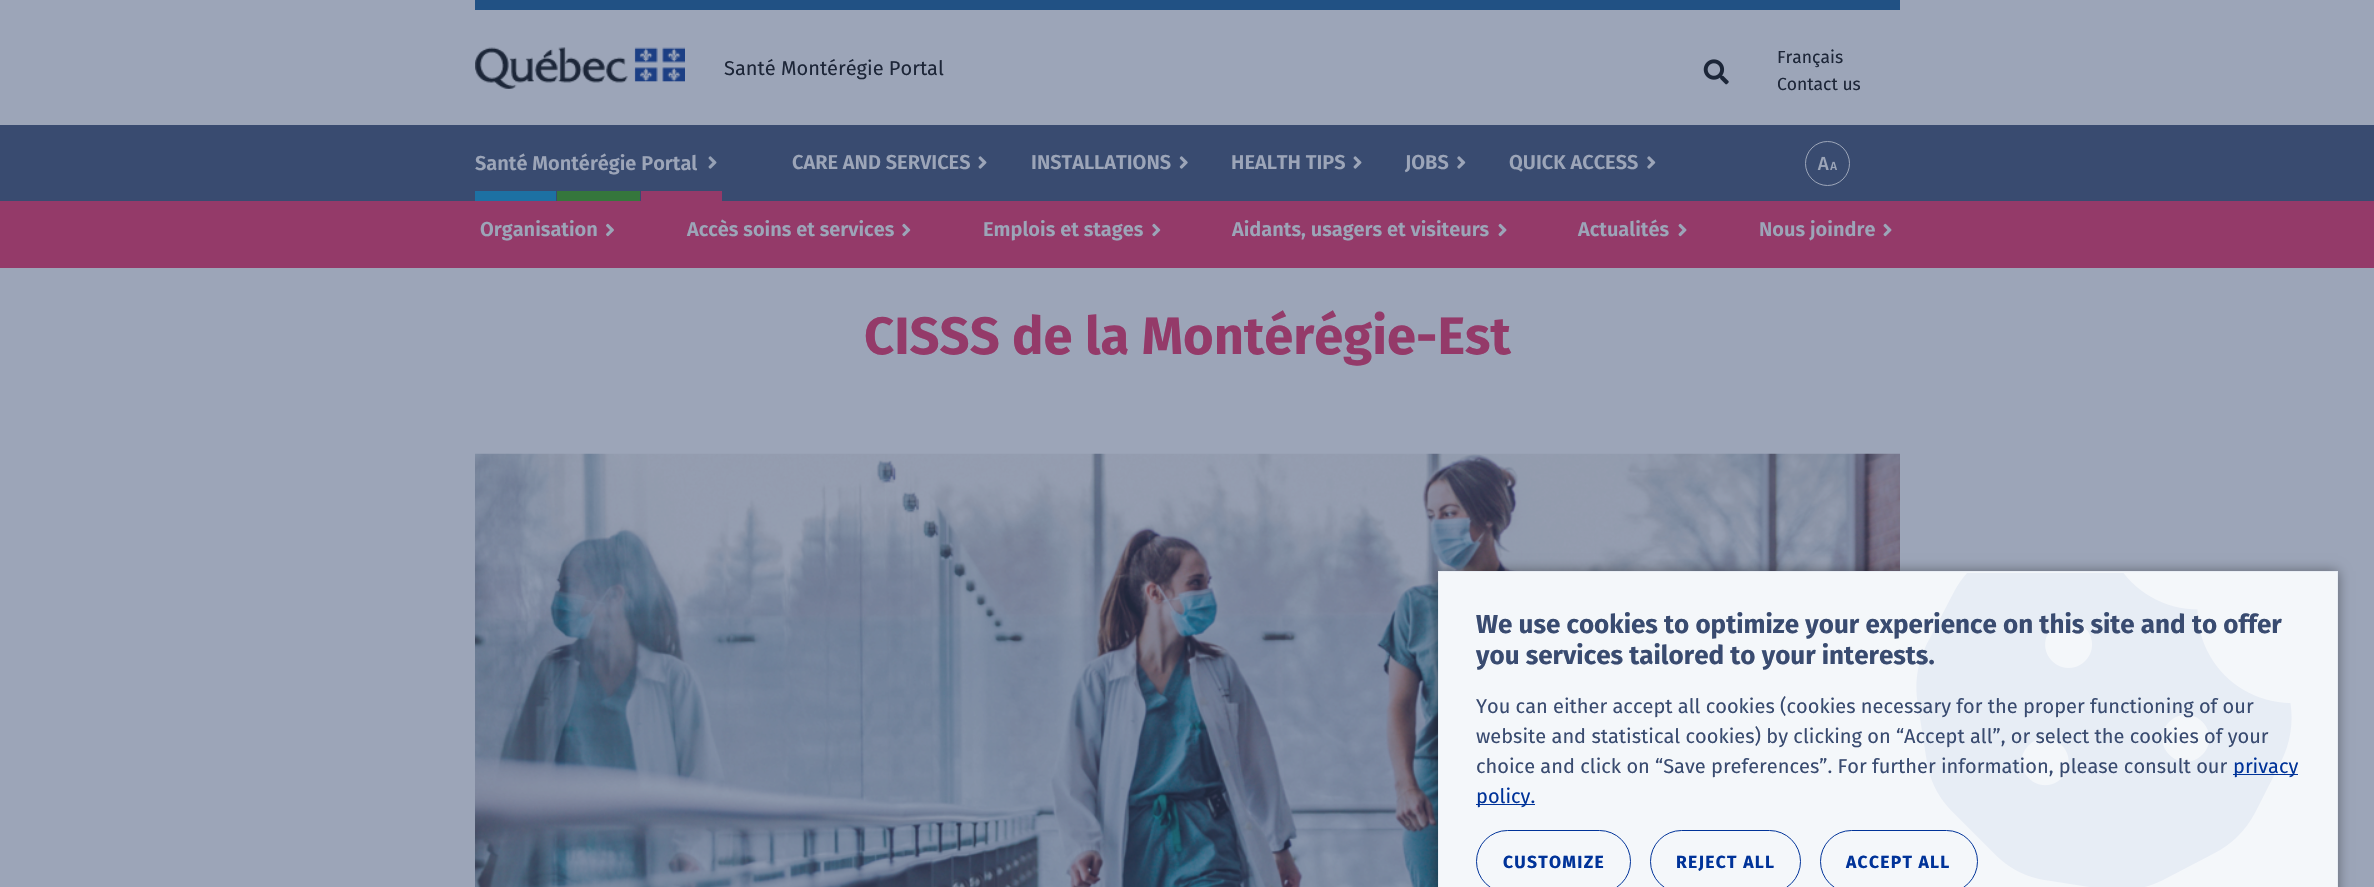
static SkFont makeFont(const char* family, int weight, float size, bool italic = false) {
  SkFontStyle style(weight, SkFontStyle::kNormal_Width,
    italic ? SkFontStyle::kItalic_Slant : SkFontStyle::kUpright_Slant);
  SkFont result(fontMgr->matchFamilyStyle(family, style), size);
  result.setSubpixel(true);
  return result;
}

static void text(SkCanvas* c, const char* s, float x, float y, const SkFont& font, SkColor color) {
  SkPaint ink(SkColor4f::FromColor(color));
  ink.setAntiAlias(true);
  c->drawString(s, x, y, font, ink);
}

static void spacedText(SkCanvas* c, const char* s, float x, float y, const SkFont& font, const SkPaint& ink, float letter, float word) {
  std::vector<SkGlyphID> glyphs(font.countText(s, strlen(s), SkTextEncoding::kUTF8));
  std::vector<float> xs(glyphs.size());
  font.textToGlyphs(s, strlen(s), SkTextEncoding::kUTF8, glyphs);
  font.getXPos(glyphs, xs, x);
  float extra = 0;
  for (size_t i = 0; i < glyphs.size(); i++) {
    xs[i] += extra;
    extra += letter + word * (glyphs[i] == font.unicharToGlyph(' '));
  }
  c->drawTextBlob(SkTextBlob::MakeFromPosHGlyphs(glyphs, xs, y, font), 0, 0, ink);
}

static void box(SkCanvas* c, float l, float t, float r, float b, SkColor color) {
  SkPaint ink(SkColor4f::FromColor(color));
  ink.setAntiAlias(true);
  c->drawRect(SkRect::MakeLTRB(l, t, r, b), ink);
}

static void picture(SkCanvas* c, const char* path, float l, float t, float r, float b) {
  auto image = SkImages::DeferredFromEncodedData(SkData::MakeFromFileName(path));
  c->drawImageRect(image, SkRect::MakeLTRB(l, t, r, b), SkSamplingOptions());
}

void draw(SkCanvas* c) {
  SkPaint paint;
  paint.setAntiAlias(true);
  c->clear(0xff9ca5b8);
  box(c, 475, 0, 1900, 10, 0xff215184);
  picture(c, "img_01.png", 475, 47, 685, 89);
  SkFont face1 = makeFont("Fira Sans", 400, 20);
  text(c, "Santé Montérégie Portal", 724, 75, face1, 0xff1d2638);
  picture(c, "img_02.png", 1703, 59, 1729, 85);
  SkFont face2 = makeFont("Fira Sans", 400, 17.5f);
  text(c, "Français", 1777, 63, face2, 0xff1d2638);
  text(c, "Contact us", 1777, 90, face2, 0xff1d2638);
  box(c, 0, 125, 2374, 201, 0xff394b70);
  SkFont face3 = makeFont("Fira Sans", 600, 20);
  text(c, "Santé Montérégie Portal", 475, 170, face3, 0xff9ca5b8);
  picture(c, "img_03.png", 708, 156, 717, 169);
  box(c, 475, 191, 556, 201, 0xff1d71a3);
  box(c, 557, 191, 640, 201, 0xff35763c);
  box(c, 641, 191, 722, 201, 0xff943a69);
  text(c, "CARE AND SERVICES", 792, 169, face3, 0xff9ca5b8);
  picture(c, "img_04.png", 978, 156, 987, 169);
  text(c, "INSTALLATIONS", 1031, 169, face3, 0xff9ca5b8);
  picture(c, "img_05.png", 1179, 156, 1188, 169);
  text(c, "HEALTH TIPS", 1231, 169, face3, 0xff9ca5b8);
  picture(c, "img_04.png", 1353, 156, 1362, 169);
  text(c, "JOBS", 1405, 169, face3, 0xff9ca5b8);
  picture(c, "img_06.png", 1457, 156, 1466, 169);
  text(c, "QUICK ACCESS", 1509, 169, face3, 0xff9ca5b8);
  picture(c, "img_06.png", 1647, 156, 1656, 169);
  picture(c, "img_07.png", 1817, 156, 1837, 170);
  paint.setStyle(SkPaint::kStroke_Style);
  paint.setStrokeWidth(1);
  paint.setColor(0xff9ca5b8);
  c->drawCircle(1827.5f, 163.5f, 22, paint);
  box(c, 0, 201, 2374, 268, 0xff943a69);
  text(c, "Organisation", 480, 236, face3, 0xff9ca5b8);
  picture(c, "img_08.png", 606, 223, 614, 237);
  text(c, "Accès soins et services", 687, 236, face3, 0xff9ca5b8);
  picture(c, "img_09.png", 902, 223, 911, 237);
  text(c, "Emplois et stages", 983, 236, face3, 0xff9ca5b8);
  picture(c, "img_09.png", 1152, 223, 1161, 237);
  text(c, "Aidants, usagers et visiteurs", 1232, 236, face3, 0xff9ca5b8);
  picture(c, "img_10.png", 1498, 223, 1507, 237);
  text(c, "Actualités", 1578, 236, face3, 0xff9ca5b8);
  picture(c, "img_10.png", 1678, 223, 1687, 237);
  text(c, "Nous joindre", 1759, 236, face3, 0xff9ca5b8);
  picture(c, "img_10.png", 1883, 223, 1892, 237);
  SkFont face4 = makeFont("Fira Sans", 700, 52.5f);
  text(c, "CISSS de la Montérégie-Est", 864, 354, face4, 0xff943a69);
  picture(c, "img_11.png", 475, 453, 1900, 887);
  paint.setStyle(SkPaint::kFill_Style);
  paint.setColor(0x66000000);
  paint.setMaskFilter(SkMaskFilter::MakeBlur(kNormal_SkBlurStyle, 6));
  c->drawRect(SkRect::MakeLTRB(1438, 571, 2338, 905), paint);
  paint.setMaskFilter(nullptr);
  paint.setColor(0xfff4f7fa);
  c->drawRect(SkRect::MakeLTRB(1438.5f, 571.5f, 2337.5f, 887.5f), paint);
  paint.setStyle(SkPaint::kStroke_Style);
  paint.setColor(0xffe9eef5);
  c->drawRect(SkRect::MakeLTRB(1438.5f, 571.5f, 2337.5f, 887.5f), paint);
  picture(c, "img_12.png", 1916, 573, 2292, 887);
  SkFont face5 = makeFont("Fira Sans", 700, 26);
  text(c, "We use cookies to optimize your experience on this site and to offer", 1476, 633, face5, 0xff394b70);
  text(c, "you services tailored to your interests.", 1476, 664, face5, 0xff394b70);
  text(c, "You can either accept all cookies (cookies necessary for the proper functioning of our", 1476, 713, face1, 0xff394b70);
  text(c, "website and statistical cookies) by clicking on “Accept all”, or select the cookies of your", 1476, 743, face1, 0xff394b70);
  text(c, "choice and click on “Save preferences”. For further information, please consult our", 1476, 773, face1, 0xff394b70);
  box(c, 2233, 774, 2298, 775, 0xff003399);
  text(c, "privacy", 2233, 773, face1, 0xff003399);
  box(c, 1476, 804, 1535, 805, 0xff003399);
  text(c, "policy.", 1476, 803, face1, 0xff003399);
  paint.setColor(0xff003399);
  c->drawRoundRect(SkRect::MakeLTRB(1476.5f, 830.5f, 1630.5f, 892.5f), 31, 31, paint);
  SkFont face6 = makeFont("Fira Sans", 700, 17.5f);
  paint.setStyle(SkPaint::kFill_Style);
  spacedText(c, "CUSTOMIZE", 1503, 868, face6, paint, 1.25f, 0);
  paint.setStyle(SkPaint::kStroke_Style);
  c->drawRoundRect(SkRect::MakeLTRB(1650.5f, 830.5f, 1800.5f, 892.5f), 31, 31, paint);
  paint.setStyle(SkPaint::kFill_Style);
  spacedText(c, "REJECT ALL", 1676, 868, face6, paint, 1.25f, 0);
  paint.setStyle(SkPaint::kStroke_Style);
  c->drawRoundRect(SkRect::MakeLTRB(1820.5f, 830.5f, 1977.5f, 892.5f), 31, 31, paint);
  paint.setStyle(SkPaint::kFill_Style);
  spacedText(c, "ACCEPT ALL", 1846, 868, face6, paint, 1.25f, 0);
}
